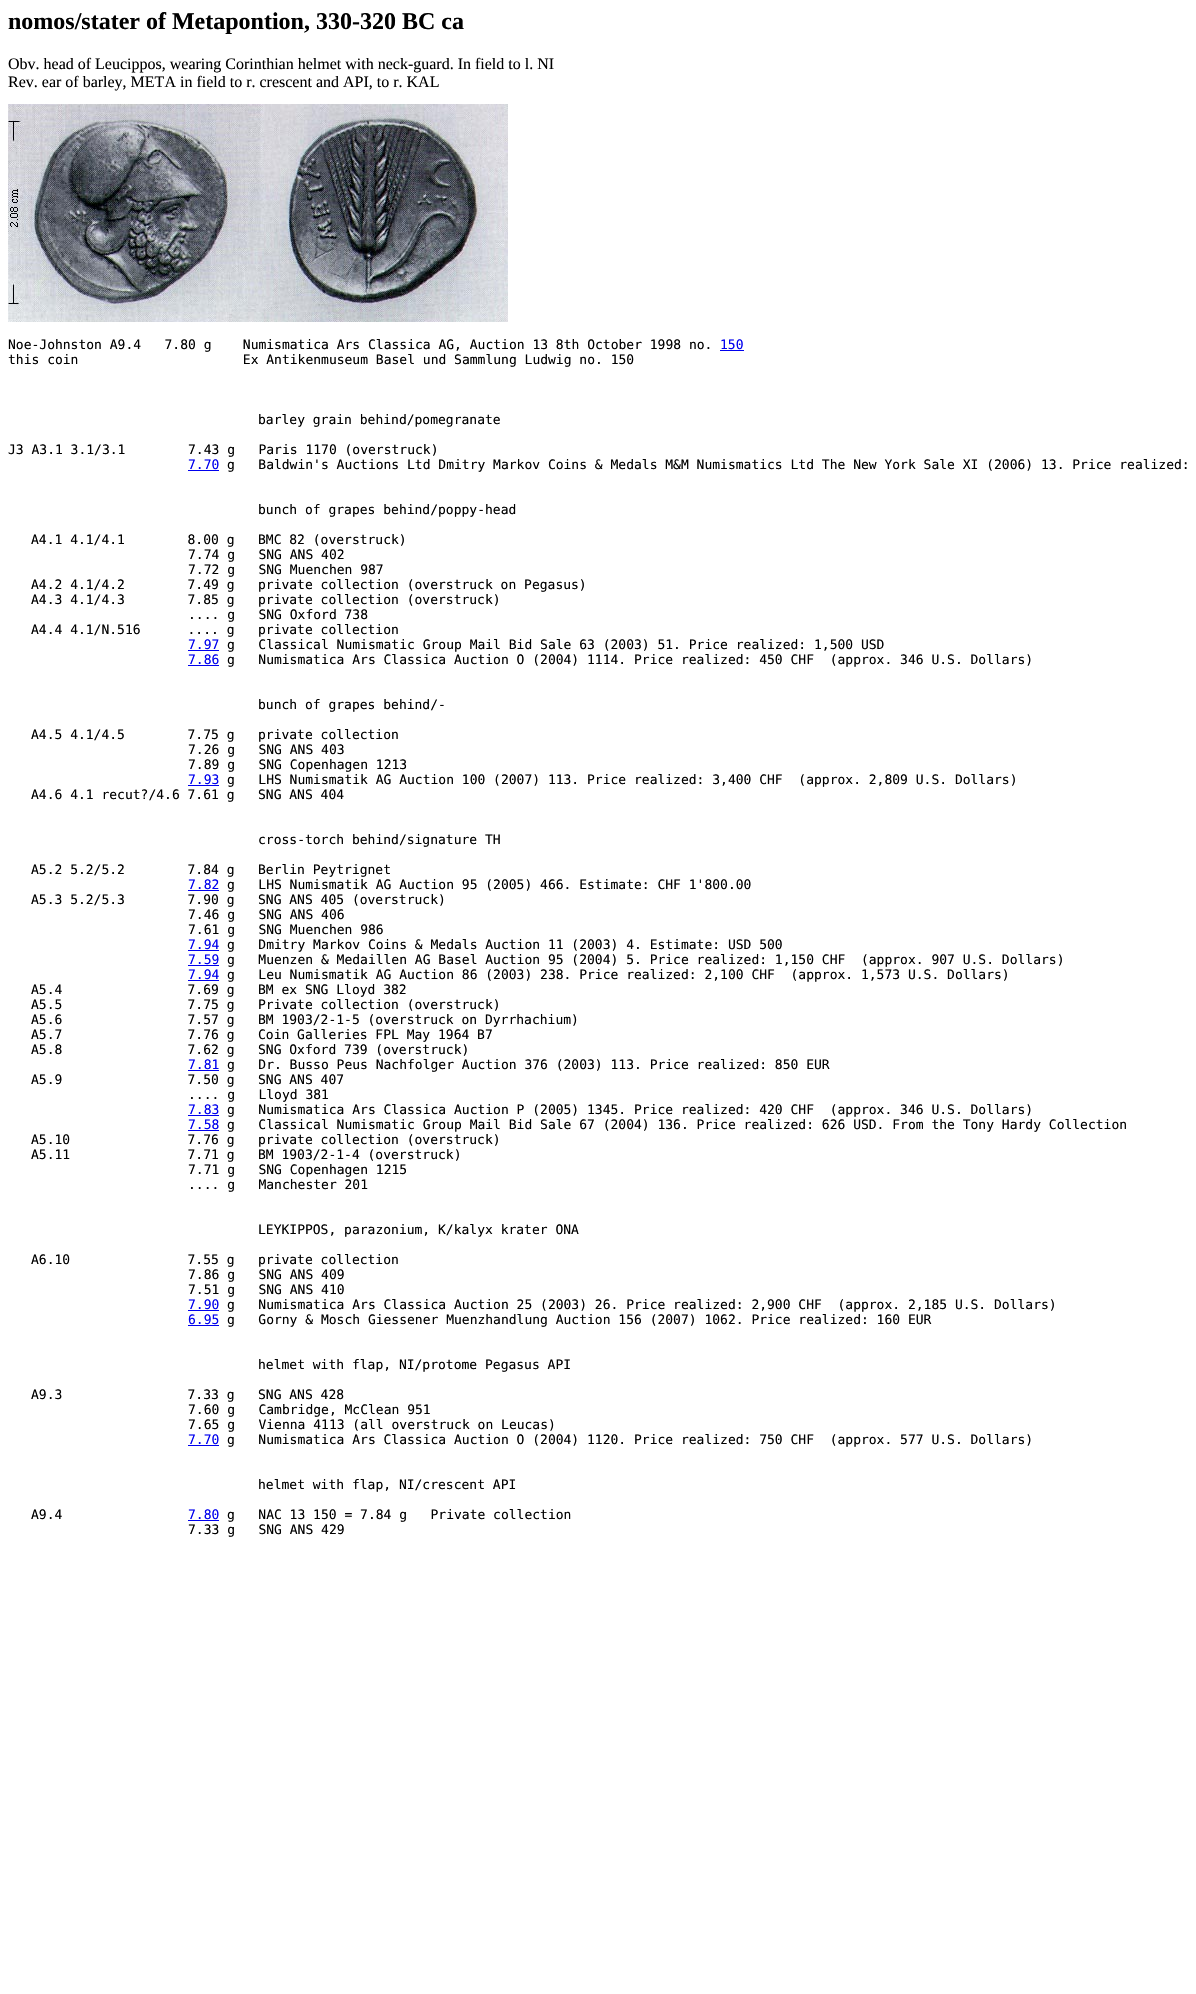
static SkFont makeFont(const char* family, int weight, float size, bool italic = false) {
  SkFontStyle style(weight, SkFontStyle::kNormal_Width,
    italic ? SkFontStyle::kItalic_Slant : SkFontStyle::kUpright_Slant);
  SkFont result(fontMgr->matchFamilyStyle(family, style), size);
  result.setSubpixel(true);
  return result;
}

static void text(SkCanvas* c, const char* s, float x, float y, const SkFont& font, SkColor color) {
  SkPaint ink(SkColor4f::FromColor(color));
  ink.setAntiAlias(true);
  c->drawString(s, x, y, font, ink);
}

static void box(SkCanvas* c, float l, float t, float r, float b, SkColor color) {
  SkPaint ink(SkColor4f::FromColor(color));
  ink.setAntiAlias(true);
  c->drawRect(SkRect::MakeLTRB(l, t, r, b), ink);
}

static void picture(SkCanvas* c, const char* path, float l, float t, float r, float b) {
  auto image = SkImages::DeferredFromEncodedData(SkData::MakeFromFileName(path));
  c->drawImageRect(image, SkRect::MakeLTRB(l, t, r, b), SkSamplingOptions());
}

void draw(SkCanvas* c) {
  SkPaint paint;
  paint.setAntiAlias(true);
  c->clear(0xffffffff);
  SkFont face1 = makeFont("Liberation Serif", 700, 24);
  text(c, "nomos/stater of Metapontion, 330-320 BC ca", 8, 29, face1, 0xff000000);
  SkFont face2 = makeFont("Liberation Serif", 400, 16);
  text(c, "Obv. head of Leucippos, wearing Corinthian helmet with neck-guard. In field to l. NI", 8, 69, face2, 0xff000000);
  text(c, "Rev. ear of barley, META in field to r. crescent and API, to r. KAL", 8, 87, face2, 0xff000000);
  picture(c, "img_01.png", 8, 104, 508, 322);
  SkFont face3 = makeFont("DejaVu Sans Mono", 400, 13);
  text(c, "Noe-Johnston A9.4   7.80 g    Numismatica Ars Classica AG, Auction 13 8th October 1998 no.", 8, 349, face3, 0xff000000);
  text(c, "150", 720, 349, face3, 0xff0000ee);
  box(c, 720, 350, 744, 351, 0xff0000ee);
  text(c, "this coin                     Ex Antikenmuseum Basel und Sammlung Ludwig no. 150", 8, 364, face3, 0xff000000);
  text(c, "barley grain behind/pomegranate", 258, 424, face3, 0xff000000);
  text(c, "J3 A3.1 3.1/3.1        7.43 g   Paris 1170 (overstruck)", 8, 454, face3, 0xff000000);
  text(c, "7.70", 188, 469, face3, 0xff0000ee);
  box(c, 188, 470, 219, 471, 0xff0000ee);
  text(c, "g   Baldwin's Auctions Ltd Dmitry Markov Coins & Medals M&M Numismatics Ltd The New York Sale XI (2006) 13. Price realized:", 227, 469, face3, 0xff000000);
  text(c, "bunch of grapes behind/poppy-head", 258, 514, face3, 0xff000000);
  text(c, "A4.1 4.1/4.1        8.00 g   BMC 82 (overstruck)", 31, 544, face3, 0xff000000);
  text(c, "7.74 g   SNG ANS 402", 188, 559, face3, 0xff000000);
  text(c, "7.72 g   SNG Muenchen 987", 188, 574, face3, 0xff000000);
  text(c, "A4.2 4.1/4.2        7.49 g   private collection (overstruck on Pegasus)", 31, 589, face3, 0xff000000);
  text(c, "A4.3 4.1/4.3        7.85 g   private collection (overstruck)", 31, 604, face3, 0xff000000);
  text(c, ".... g   SNG Oxford 738", 188, 619, face3, 0xff000000);
  text(c, "A4.4 4.1/N.516      .... g   private collection", 31, 634, face3, 0xff000000);
  text(c, "7.97", 188, 649, face3, 0xff0000ee);
  box(c, 188, 650, 219, 651, 0xff0000ee);
  text(c, "g   Classical Numismatic Group Mail Bid Sale 63 (2003) 51. Price realized: 1,500 USD", 227, 649, face3, 0xff000000);
  text(c, "7.86", 188, 664, face3, 0xff0000ee);
  box(c, 188, 665, 219, 666, 0xff0000ee);
  text(c, "g   Numismatica Ars Classica Auction O (2004) 1114. Price realized: 450 CHF  (approx. 346 U.S. Dollars)", 227, 664, face3, 0xff000000);
  text(c, "bunch of grapes behind/-", 258, 709, face3, 0xff000000);
  text(c, "A4.5 4.1/4.5        7.75 g   private collection", 31, 739, face3, 0xff000000);
  text(c, "7.26 g   SNG ANS 403", 188, 754, face3, 0xff000000);
  text(c, "7.89 g   SNG Copenhagen 1213", 188, 769, face3, 0xff000000);
  text(c, "7.93", 188, 784, face3, 0xff0000ee);
  box(c, 188, 785, 219, 786, 0xff0000ee);
  text(c, "g   LHS Numismatik AG Auction 100 (2007) 113. Price realized: 3,400 CHF  (approx. 2,809 U.S. Dollars)", 227, 784, face3, 0xff000000);
  text(c, "A4.6 4.1 recut?/4.6 7.61 g   SNG ANS 404", 31, 799, face3, 0xff000000);
  text(c, "cross-torch behind/signature TH", 258, 844, face3, 0xff000000);
  text(c, "A5.2 5.2/5.2        7.84 g   Berlin Peytrignet", 31, 874, face3, 0xff000000);
  text(c, "7.82", 188, 889, face3, 0xff0000ee);
  box(c, 188, 890, 219, 891, 0xff0000ee);
  text(c, "g   LHS Numismatik AG Auction 95 (2005) 466. Estimate: CHF 1'800.00", 227, 889, face3, 0xff000000);
  text(c, "A5.3 5.2/5.3        7.90 g   SNG ANS 405 (overstruck)", 31, 904, face3, 0xff000000);
  text(c, "7.46 g   SNG ANS 406", 188, 919, face3, 0xff000000);
  text(c, "7.61 g   SNG Muenchen 986", 188, 934, face3, 0xff000000);
  text(c, "7.94", 188, 949, face3, 0xff0000ee);
  box(c, 188, 950, 219, 951, 0xff0000ee);
  text(c, "g   Dmitry Markov Coins & Medals Auction 11 (2003) 4. Estimate: USD 500", 227, 949, face3, 0xff000000);
  text(c, "7.59", 188, 964, face3, 0xff0000ee);
  box(c, 188, 965, 219, 966, 0xff0000ee);
  text(c, "g   Muenzen & Medaillen AG Basel Auction 95 (2004) 5. Price realized: 1,150 CHF  (approx. 907 U.S. Dollars)", 227, 964, face3, 0xff000000);
  text(c, "7.94", 188, 979, face3, 0xff0000ee);
  box(c, 188, 980, 219, 981, 0xff0000ee);
  text(c, "g   Leu Numismatik AG Auction 86 (2003) 238. Price realized: 2,100 CHF  (approx. 1,573 U.S. Dollars)", 227, 979, face3, 0xff000000);
  text(c, "A5.4                7.69 g   BM ex SNG Lloyd 382", 31, 994, face3, 0xff000000);
  text(c, "A5.5                7.75 g   Private collection (overstruck)", 31, 1009, face3, 0xff000000);
  text(c, "A5.6                7.57 g   BM 1903/2-1-5 (overstruck on Dyrrhachium)", 31, 1024, face3, 0xff000000);
  text(c, "A5.7                7.76 g   Coin Galleries FPL May 1964 B7", 31, 1039, face3, 0xff000000);
  text(c, "A5.8                7.62 g   SNG Oxford 739 (overstruck)", 31, 1054, face3, 0xff000000);
  text(c, "7.81", 188, 1069, face3, 0xff0000ee);
  box(c, 188, 1070, 219, 1071, 0xff0000ee);
  text(c, "g   Dr. Busso Peus Nachfolger Auction 376 (2003) 113. Price realized: 850 EUR", 227, 1069, face3, 0xff000000);
  text(c, "A5.9                7.50 g   SNG ANS 407", 31, 1084, face3, 0xff000000);
  text(c, ".... g   Lloyd 381", 188, 1099, face3, 0xff000000);
  text(c, "7.83", 188, 1114, face3, 0xff0000ee);
  box(c, 188, 1115, 219, 1116, 0xff0000ee);
  text(c, "g   Numismatica Ars Classica Auction P (2005) 1345. Price realized: 420 CHF  (approx. 346 U.S. Dollars)", 227, 1114, face3, 0xff000000);
  text(c, "7.58", 188, 1129, face3, 0xff0000ee);
  box(c, 188, 1130, 219, 1131, 0xff0000ee);
  text(c, "g   Classical Numismatic Group Mail Bid Sale 67 (2004) 136. Price realized: 626 USD. From the Tony Hardy Collection", 227, 1129, face3, 0xff000000);
  text(c, "A5.10               7.76 g   private collection (overstruck)", 31, 1144, face3, 0xff000000);
  text(c, "A5.11               7.71 g   BM 1903/2-1-4 (overstruck)", 31, 1159, face3, 0xff000000);
  text(c, "7.71 g   SNG Copenhagen 1215", 188, 1174, face3, 0xff000000);
  text(c, ".... g   Manchester 201", 188, 1189, face3, 0xff000000);
  text(c, "LEYKIPPOS, parazonium, K/kalyx krater ONA", 258, 1234, face3, 0xff000000);
  text(c, "A6.10               7.55 g   private collection", 31, 1264, face3, 0xff000000);
  text(c, "7.86 g   SNG ANS 409", 188, 1279, face3, 0xff000000);
  text(c, "7.51 g   SNG ANS 410", 188, 1294, face3, 0xff000000);
  text(c, "7.90", 188, 1309, face3, 0xff0000ee);
  box(c, 188, 1310, 219, 1311, 0xff0000ee);
  text(c, "g   Numismatica Ars Classica Auction 25 (2003) 26. Price realized: 2,900 CHF  (approx. 2,185 U.S. Dollars)", 227, 1309, face3, 0xff000000);
  text(c, "6.95", 188, 1324, face3, 0xff0000ee);
  box(c, 188, 1325, 219, 1326, 0xff0000ee);
  text(c, "g   Gorny & Mosch Giessener Muenzhandlung Auction 156 (2007) 1062. Price realized: 160 EUR", 227, 1324, face3, 0xff000000);
  text(c, "helmet with flap, NI/protome Pegasus API", 258, 1369, face3, 0xff000000);
  text(c, "A9.3                7.33 g   SNG ANS 428", 31, 1399, face3, 0xff000000);
  text(c, "7.60 g   Cambridge, McClean 951", 188, 1414, face3, 0xff000000);
  text(c, "7.65 g   Vienna 4113 (all overstruck on Leucas)", 188, 1429, face3, 0xff000000);
  text(c, "7.70", 188, 1444, face3, 0xff0000ee);
  box(c, 188, 1445, 219, 1446, 0xff0000ee);
  text(c, "g   Numismatica Ars Classica Auction O (2004) 1120. Price realized: 750 CHF  (approx. 577 U.S. Dollars)", 227, 1444, face3, 0xff000000);
  text(c, "helmet with flap, NI/crescent API", 258, 1489, face3, 0xff000000);
  text(c, "A9.4", 31, 1519, face3, 0xff000000);
  text(c, "7.80", 188, 1519, face3, 0xff0000ee);
  box(c, 188, 1520, 219, 1521, 0xff0000ee);
  text(c, "g   NAC 13 150 = 7.84 g   Private collection", 227, 1519, face3, 0xff000000);
  text(c, "7.33 g   SNG ANS 429", 188, 1534, face3, 0xff000000);
}
